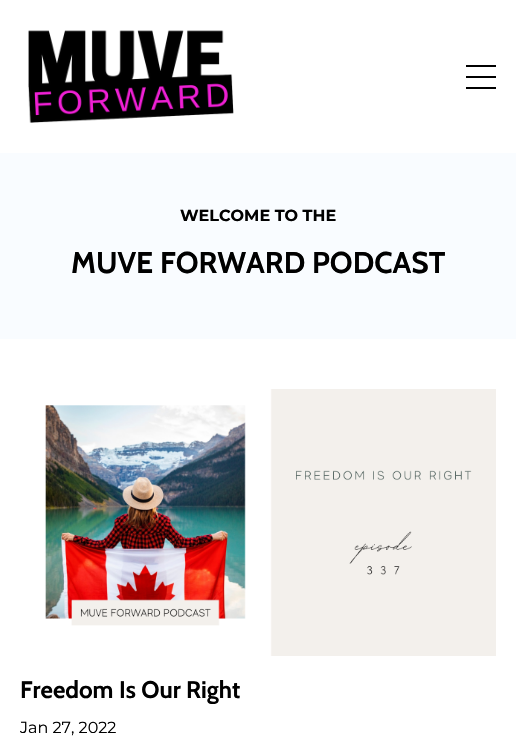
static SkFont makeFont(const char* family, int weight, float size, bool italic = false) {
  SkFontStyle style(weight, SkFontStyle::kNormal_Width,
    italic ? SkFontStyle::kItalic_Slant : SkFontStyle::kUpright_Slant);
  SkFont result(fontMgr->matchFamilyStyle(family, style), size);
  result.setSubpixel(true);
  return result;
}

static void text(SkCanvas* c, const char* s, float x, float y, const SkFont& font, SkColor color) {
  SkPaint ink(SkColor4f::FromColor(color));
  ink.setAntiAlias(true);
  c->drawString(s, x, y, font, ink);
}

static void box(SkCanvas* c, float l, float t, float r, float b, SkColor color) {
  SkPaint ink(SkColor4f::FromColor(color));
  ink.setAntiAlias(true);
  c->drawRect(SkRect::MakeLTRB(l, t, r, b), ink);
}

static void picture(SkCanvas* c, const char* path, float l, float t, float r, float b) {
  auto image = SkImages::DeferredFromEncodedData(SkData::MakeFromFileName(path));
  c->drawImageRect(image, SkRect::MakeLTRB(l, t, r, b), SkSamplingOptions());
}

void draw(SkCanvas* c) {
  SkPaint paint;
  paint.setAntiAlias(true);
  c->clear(0xfff9fcff);
  box(c, 0, 0, 516, 153, 0xffffffff);
  picture(c, "img_01.png", 28, 30, 234, 123);
  box(c, 466, 65, 496, 67, 0xff000000);
  box(c, 466, 76, 496, 78, 0xff000000);
  box(c, 466, 87, 496, 89, 0xff000000);
  SkFont face1 = makeFont("Montserrat", 700, 16);
  text(c, "WELCOME TO THE", 180, 221, face1, 0xff000000);
  SkFont face2 = makeFont("Cabin", 700, 30);
  text(c, "MUVE FORWARD PODCAST", 71, 273, face2, 0xff000000);
  box(c, 0, 339, 516, 736, 0xffffffff);
  picture(c, "img_02.png", 45, 389, 496, 656);
  SkFont face3 = makeFont("Cabin", 700, 24);
  text(c, "Freedom Is Our Right", 20, 698, face3, 0xff000000);
  SkFont face4 = makeFont("Montserrat", 400, 16);
  text(c, "Jan 27, 2022", 20, 733, face4, 0xff000000);
}
